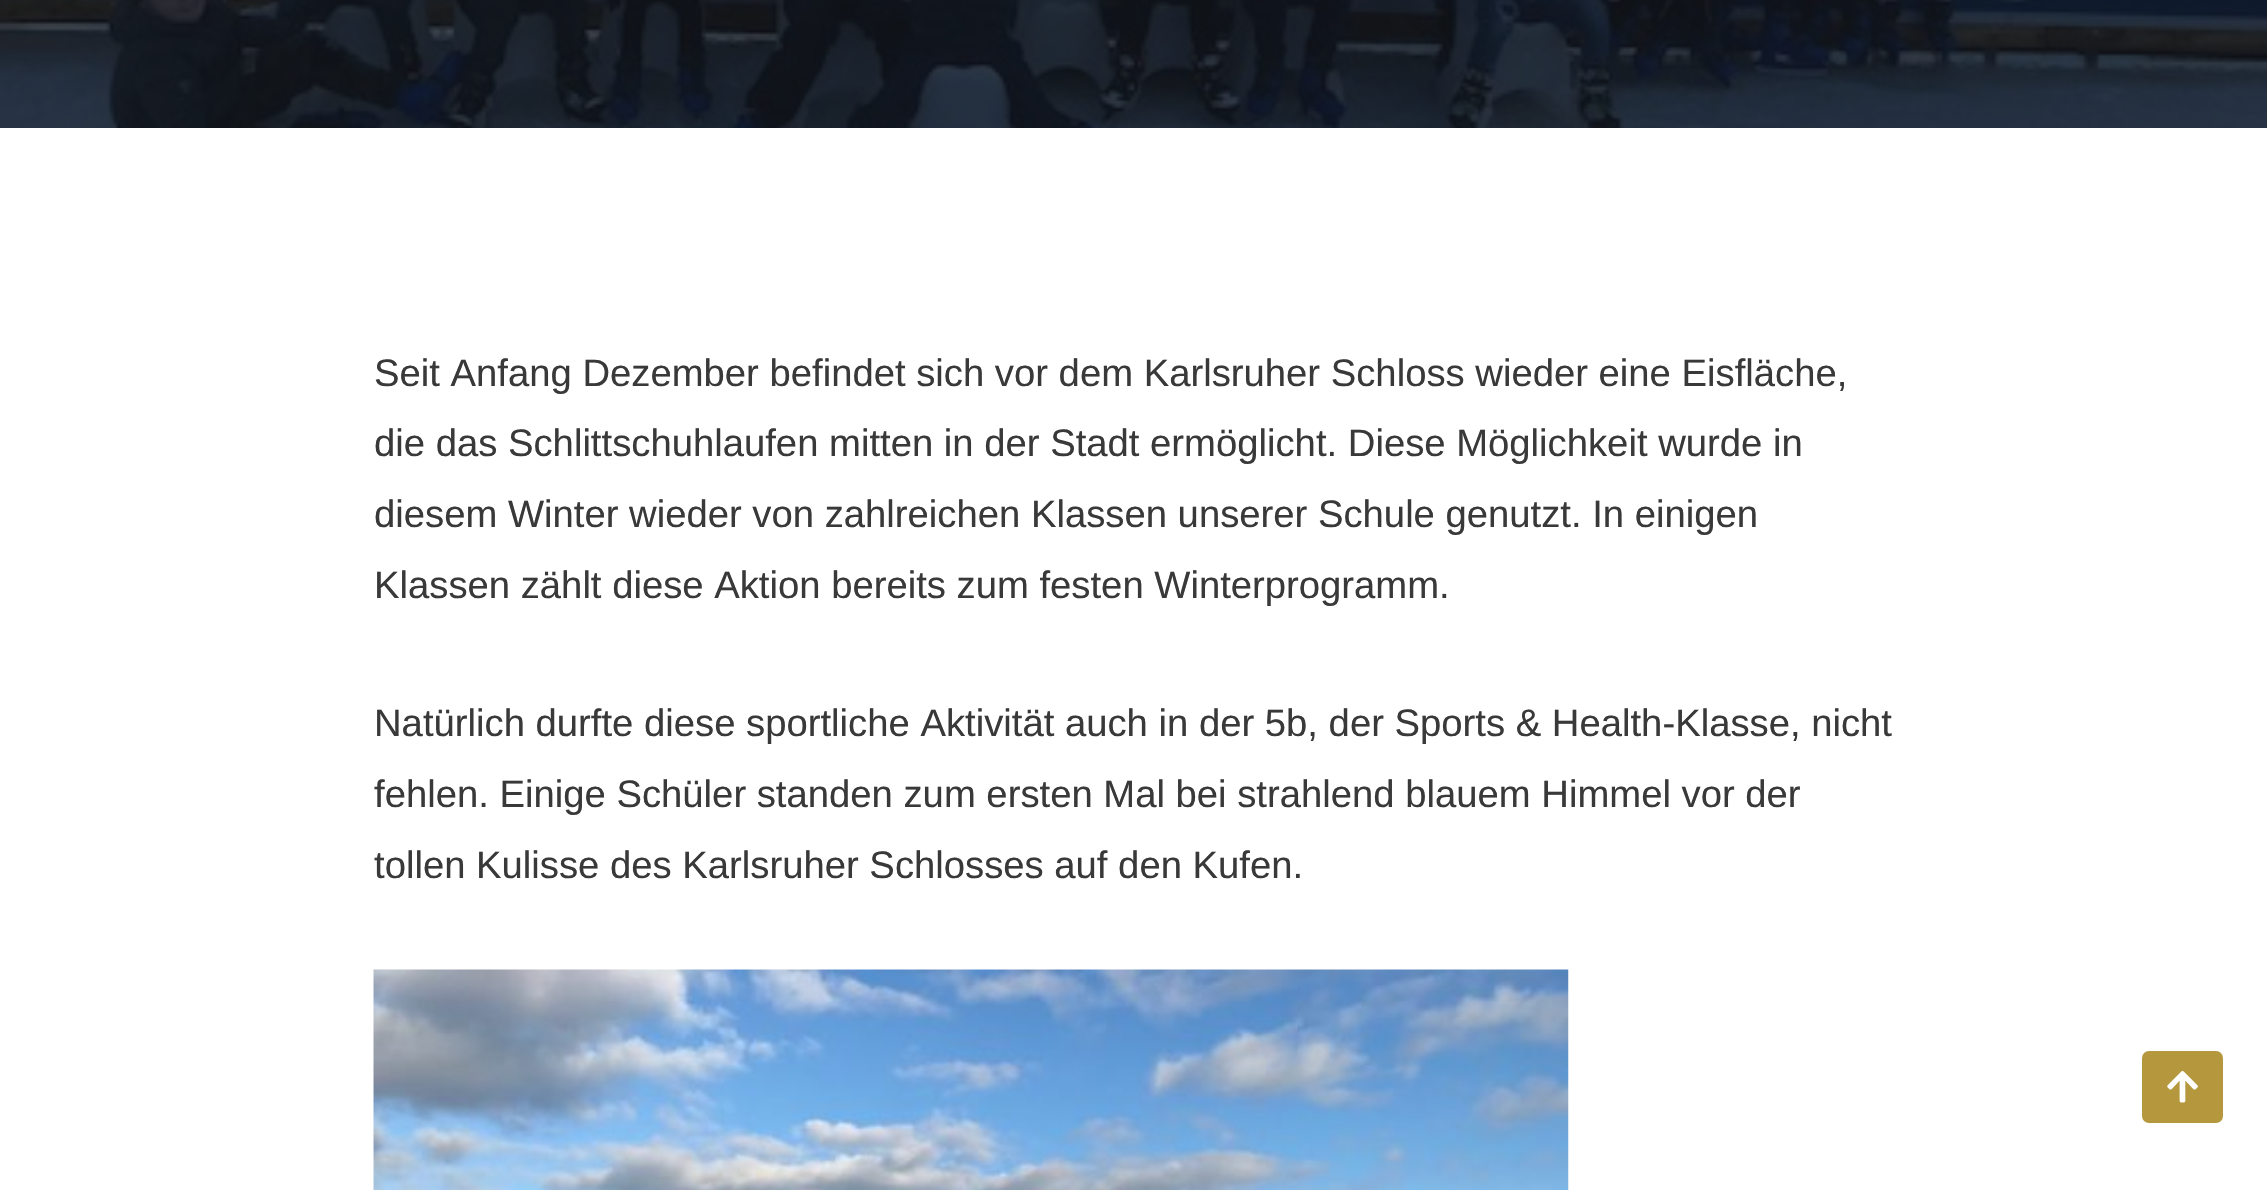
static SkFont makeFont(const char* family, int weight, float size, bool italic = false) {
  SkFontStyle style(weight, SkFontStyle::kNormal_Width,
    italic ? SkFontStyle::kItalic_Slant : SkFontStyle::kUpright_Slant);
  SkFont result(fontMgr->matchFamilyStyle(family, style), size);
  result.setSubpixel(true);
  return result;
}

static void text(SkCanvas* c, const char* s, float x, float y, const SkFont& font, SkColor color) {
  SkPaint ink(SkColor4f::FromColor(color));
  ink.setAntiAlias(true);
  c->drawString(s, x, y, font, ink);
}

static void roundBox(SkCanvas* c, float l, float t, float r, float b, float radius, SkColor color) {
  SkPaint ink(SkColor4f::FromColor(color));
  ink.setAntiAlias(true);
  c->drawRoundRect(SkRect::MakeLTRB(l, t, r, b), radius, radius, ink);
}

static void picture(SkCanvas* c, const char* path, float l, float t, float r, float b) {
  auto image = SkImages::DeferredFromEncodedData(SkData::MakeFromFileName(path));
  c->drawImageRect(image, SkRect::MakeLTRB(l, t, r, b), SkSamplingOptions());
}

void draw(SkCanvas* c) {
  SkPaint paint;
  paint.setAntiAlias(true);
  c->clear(0xffffffff);
  picture(c, "img_01.png", 0, 0, 2267, 128);
  SkFont face1 = makeFont("Liberation Sans", 400, 38.25f);
  text(c, "Seit Anfang Dezember befindet sich vor dem Karlsruher Schloss wieder eine Eisfläche,", 374, 386, face1, 0xff393939);
  text(c, "die das Schlittschuhlaufen mitten in der Stadt ermöglicht. Diese Möglichkeit wurde in", 374, 456, face1, 0xff393939);
  text(c, "diesem Winter wieder von zahlreichen Klassen unserer Schule genutzt. In einigen", 374, 527, face1, 0xff393939);
  text(c, "Klassen zählt diese Aktion bereits zum festen Winterprogramm.", 374, 598, face1, 0xff393939);
  text(c, "Natürlich durfte diese sportliche Aktivität auch in der 5b, der Sports & Health-Klasse, nicht", 374, 736, face1, 0xff393939);
  text(c, "fehlen. Einige Schüler standen zum ersten Mal bei strahlend blauem Himmel vor der", 374, 807, face1, 0xff393939);
  text(c, "tollen Kulisse des Karlsruher Schlosses auf den Kufen.", 374, 878, face1, 0xff393939);
  picture(c, "img_02.png", 373, 969, 1569, 1190);
  roundBox(c, 2142, 1051, 2223, 1123, 7, 0xffb5973d);
  picture(c, "img_03.png", 2167, 1071, 2198, 1103);
}
